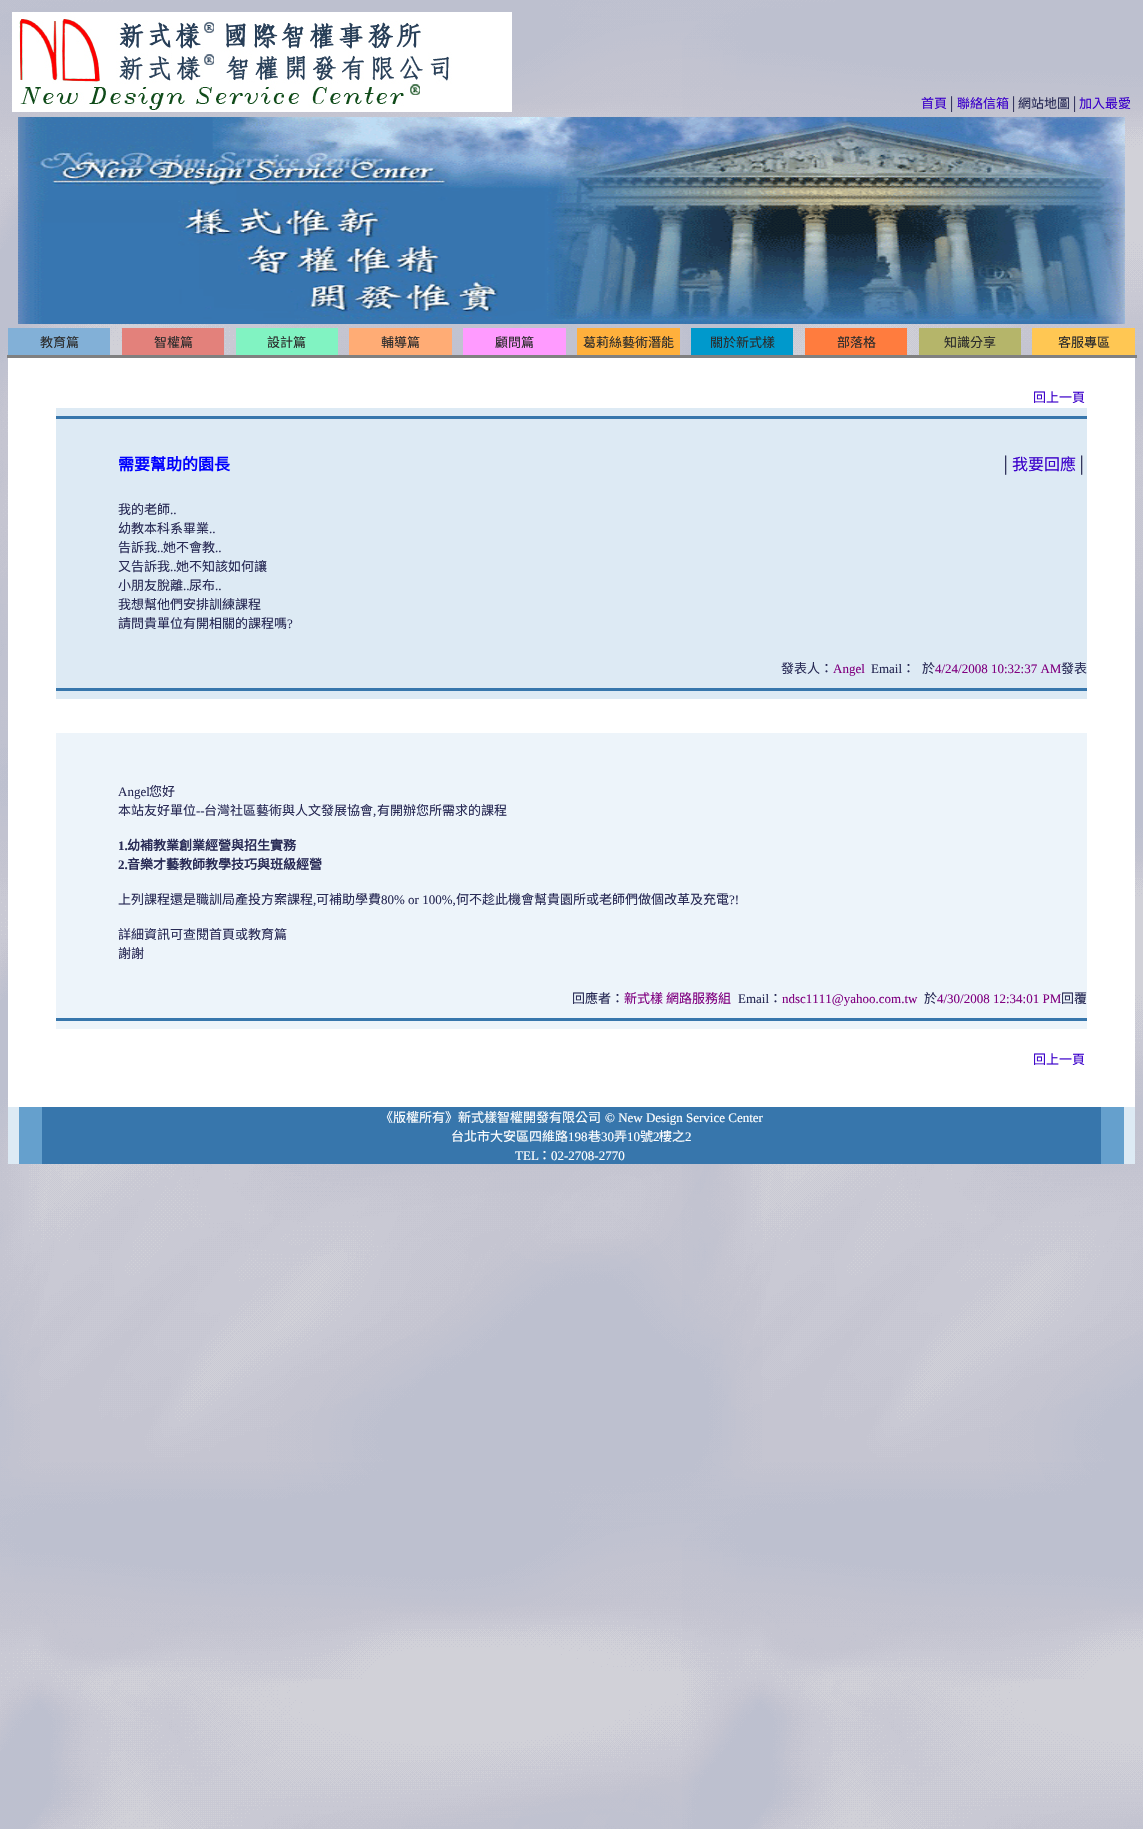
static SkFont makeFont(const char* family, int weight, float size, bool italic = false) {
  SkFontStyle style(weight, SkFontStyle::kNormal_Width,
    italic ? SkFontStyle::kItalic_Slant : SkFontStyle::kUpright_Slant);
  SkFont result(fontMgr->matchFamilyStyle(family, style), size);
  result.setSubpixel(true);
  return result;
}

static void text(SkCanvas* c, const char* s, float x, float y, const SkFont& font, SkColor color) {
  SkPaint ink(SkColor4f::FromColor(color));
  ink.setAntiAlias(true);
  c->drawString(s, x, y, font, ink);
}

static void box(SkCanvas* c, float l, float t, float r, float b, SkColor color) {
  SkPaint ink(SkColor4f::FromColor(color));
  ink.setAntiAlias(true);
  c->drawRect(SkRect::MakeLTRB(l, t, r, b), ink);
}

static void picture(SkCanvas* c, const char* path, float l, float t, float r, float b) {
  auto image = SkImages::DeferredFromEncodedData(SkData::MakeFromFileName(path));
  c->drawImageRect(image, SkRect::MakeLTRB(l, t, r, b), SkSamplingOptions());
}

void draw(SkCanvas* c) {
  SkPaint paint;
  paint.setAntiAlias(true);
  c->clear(0xffffffff);
  picture(c, "img_01.png", 0, 0, 1143, 1829);
  picture(c, "img_02.png", 12, 12, 512, 112);
  SkFont face1 = makeFont("Noto Sans CJK TC", 400, 13);
  text(c, "首頁", 921, 108, face1, 0xff3b00ca);
  SkFont face2 = makeFont("Liberation Serif", 400, 13);
  text(c, "│", 947, 108, face2, 0xff282a55);
  text(c, "聯絡信箱", 957, 108, face1, 0xff3b00ca);
  text(c, "│", 1009, 108, face2, 0xff282a55);
  text(c, "網站地圖", 1018, 108, face1, 0xff282a55);
  text(c, "│", 1070, 108, face2, 0xff282a55);
  text(c, "加入最愛", 1079, 108, face1, 0xff3b00ca);
  picture(c, "img_03.png", 18, 117, 1125, 324);
  box(c, 8, 328, 110, 355, 0xff82b0d7);
  text(c, "教育篇", 40, 347, face1, 0xff2b2b2b);
  box(c, 122, 328, 224, 355, 0xffe3817b);
  text(c, "智權篇", 154, 347, face1, 0xff2b2b2b);
  box(c, 236, 328, 338, 355, 0xff81f3c2);
  text(c, "設計篇", 267, 347, face1, 0xff2b2b2b);
  box(c, 349, 328, 452, 355, 0xffffac75);
  text(c, "輔導篇", 381, 347, face1, 0xff2b2b2b);
  box(c, 463, 328, 566, 355, 0xffff9bff);
  text(c, "顧問篇", 495, 347, face1, 0xff2b2b2b);
  box(c, 577, 328, 680, 355, 0xffffb03c);
  text(c, "葛莉絲藝術潛能", 583, 347, face1, 0xff2b2b2b);
  box(c, 691, 328, 793, 355, 0xff0099cc);
  text(c, "關於新式樣", 710, 347, face1, 0xff2b2b2b);
  box(c, 805, 328, 907, 355, 0xffff7c3e);
  text(c, "部落格", 837, 347, face1, 0xff2b2b2b);
  box(c, 919, 328, 1021, 355, 0xffb5b56a);
  text(c, "知識分享", 944, 347, face1, 0xff2b2b2b);
  box(c, 1032, 328, 1135, 355, 0xffffc753);
  text(c, "客服專區", 1058, 347, face1, 0xff2b2b2b);
  box(c, 7, 355, 1137, 358, 0xff808080);
  box(c, 8, 358, 1135, 1107, 0xffffffff);
  text(c, "回上一頁", 1033, 402, face1, 0xff3b00ca);
  box(c, 56, 408, 1087, 451, 0xffddeaf4);
  box(c, 57, 417, 1086, 419, 0xff3776ac);
  box(c, 56, 416, 1087, 417, 0xff3776ac);
  box(c, 1086, 416, 1087, 419, 0xff3776ac);
  box(c, 56, 416, 57, 419, 0xff3776ac);
  box(c, 56, 451, 1087, 499, 0xffddeaf4);
  SkFont face3 = makeFont("Noto Sans CJK TC", 700, 16);
  text(c, "需要幫助的園長", 118, 470, face3, 0xff0000ff);
  SkFont face4 = makeFont("Liberation Serif", 400, 16);
  text(c, "│", 1000, 470, face4, 0xff282a55);
  SkFont face5 = makeFont("Noto Sans CJK TC", 400, 16);
  text(c, "我要回應", 1012, 470, face5, 0xff3b00ca);
  text(c, "│", 1076, 470, face4, 0xff282a55);
  box(c, 56, 499, 1087, 656, 0xffddeaf4);
  text(c, "我的老師", 118, 514, face1, 0xff282a55);
  text(c, "..", 170, 514, face2, 0xff282a55);
  text(c, "幼教本科系畢業", 118, 533, face1, 0xff282a55);
  text(c, "..", 209, 533, face2, 0xff282a55);
  text(c, "告訴我", 118, 552, face1, 0xff282a55);
  text(c, "..", 157, 552, face2, 0xff282a55);
  text(c, "她不會教", 163, 552, face1, 0xff282a55);
  text(c, "..", 215, 552, face2, 0xff282a55);
  text(c, "又告訴我", 118, 571, face1, 0xff282a55);
  text(c, "..", 170, 571, face2, 0xff282a55);
  text(c, "她不知該如何讓", 176, 571, face1, 0xff282a55);
  text(c, "小朋友脫離", 118, 590, face1, 0xff282a55);
  text(c, "..", 183, 590, face2, 0xff282a55);
  text(c, "尿布", 189, 590, face1, 0xff282a55);
  text(c, "..", 215, 590, face2, 0xff282a55);
  text(c, "我想幫他們安排訓練課程", 118, 609, face1, 0xff282a55);
  text(c, "請問貴單位有開相關的課程嗎", 118, 628, face1, 0xff282a55);
  text(c, "?", 287, 628, face2, 0xff282a55);
  box(c, 56, 656, 1087, 699, 0xffddeaf4);
  text(c, "發表人：", 781, 673, face1, 0xff282a55);
  text(c, "Angel", 833, 673, face2, 0xff800080);
  text(c, "Email", 871, 673, face2, 0xff282a55);
  text(c, "：", 902, 673, face1, 0xff282a55);
  text(c, "於", 922, 673, face1, 0xff282a55);
  text(c, "4/24/2008 10:32:37 AM", 935, 673, face2, 0xff800080);
  text(c, "發表", 1061, 673, face1, 0xff282a55);
  box(c, 57, 689, 1086, 691, 0xff3776ac);
  box(c, 56, 688, 1087, 689, 0xff3776ac);
  box(c, 1086, 688, 1087, 691, 0xff3776ac);
  box(c, 56, 688, 57, 691, 0xff3776ac);
  box(c, 56, 733, 1087, 781, 0xffedf4fa);
  box(c, 56, 781, 1087, 986, 0xffedf4fa);
  text(c, "Angel", 118, 796, face2, 0xff282a55);
  text(c, "您好", 149, 796, face1, 0xff282a55);
  text(c, "本站友好單位", 118, 815, face1, 0xff282a55);
  text(c, "--", 196, 815, face2, 0xff282a55);
  text(c, "台灣社區藝術與人文發展協會", 204, 815, face1, 0xff282a55);
  text(c, "有開辦您所需求的課程", 377, 815, face1, 0xff282a55);
  text(c, ",", 373, 815, face2, 0xff282a55);
  SkFont face6 = makeFont("Liberation Serif", 700, 13);
  text(c, "1.", 118, 850, face6, 0xff282a55);
  SkFont face7 = makeFont("Noto Sans CJK TC", 700, 13);
  text(c, "幼補教業創業經營與招生實務", 127, 850, face7, 0xff282a55);
  text(c, "2.", 118, 869, face6, 0xff282a55);
  text(c, "音樂才藝教師教學技巧與班級經營", 127, 869, face7, 0xff282a55);
  text(c, "上列課程還是職訓局產投方案課程", 118, 904, face1, 0xff282a55);
  text(c, ",", 313, 904, face2, 0xff282a55);
  text(c, "可補助學費", 316, 904, face1, 0xff282a55);
  text(c, "80% or 100%,", 381, 904, face2, 0xff282a55);
  text(c, "何不趁此機會幫貴園所或老師們做個改革及充電", 456, 904, face1, 0xff282a55);
  text(c, "?!", 729, 904, face2, 0xff282a55);
  text(c, "詳細資訊可查閱首頁或教育篇", 118, 939, face1, 0xff282a55);
  text(c, "謝謝", 118, 958, face1, 0xff282a55);
  box(c, 56, 986, 1087, 1029, 0xffedf4fa);
  text(c, "回應者：", 572, 1003, face1, 0xff282a55);
  text(c, "新式樣 網路服務組", 624, 1003, face1, 0xff800080);
  text(c, "Email", 738, 1003, face2, 0xff282a55);
  text(c, "：", 769, 1003, face1, 0xff282a55);
  text(c, "ndsc1111@yahoo.com.tw", 782, 1003, face2, 0xff800080);
  text(c, "於", 924, 1003, face1, 0xff282a55);
  text(c, "4/30/2008 12:34:01 PM", 937, 1003, face2, 0xff800080);
  text(c, "回覆", 1061, 1003, face1, 0xff282a55);
  box(c, 57, 1019, 1086, 1021, 0xff3776ac);
  box(c, 56, 1018, 1087, 1019, 0xff3776ac);
  box(c, 1086, 1018, 1087, 1021, 0xff3776ac);
  box(c, 56, 1018, 57, 1021, 0xff3776ac);
  text(c, "回上一頁", 1033, 1064, face1, 0xff3b00ca);
  box(c, 8, 1107, 1135, 1164, 0xffddeaf4);
  box(c, 19, 1107, 42, 1164, 0xff65a0cd);
  box(c, 42, 1107, 1101, 1164, 0xff3776ac);
  text(c, "《版權所有》新式樣智權開發有限公司", 380, 1122, face1, 0xffffffff);
  text(c, "© New Design Service Center", 605, 1122, face2, 0xffffffff);
  text(c, "台北市大安區四維路", 451, 1141, face1, 0xffffffff);
  text(c, "198", 568, 1141, face2, 0xffffffff);
  text(c, "巷", 588, 1141, face1, 0xffffffff);
  text(c, "30", 601, 1141, face2, 0xffffffff);
  text(c, "弄", 614, 1141, face1, 0xffffffff);
  text(c, "10", 627, 1141, face2, 0xffffffff);
  text(c, "號", 640, 1141, face1, 0xffffffff);
  text(c, "2", 653, 1141, face2, 0xffffffff);
  text(c, "樓之", 659, 1141, face1, 0xffffffff);
  text(c, "2", 685, 1141, face2, 0xffffffff);
  text(c, "TEL", 515, 1160, face2, 0xffffffff);
  text(c, "：", 538, 1160, face1, 0xffffffff);
  text(c, "02-2708-2770", 551, 1160, face2, 0xffffffff);
  box(c, 1101, 1107, 1124, 1164, 0xff65a0cd);
}
